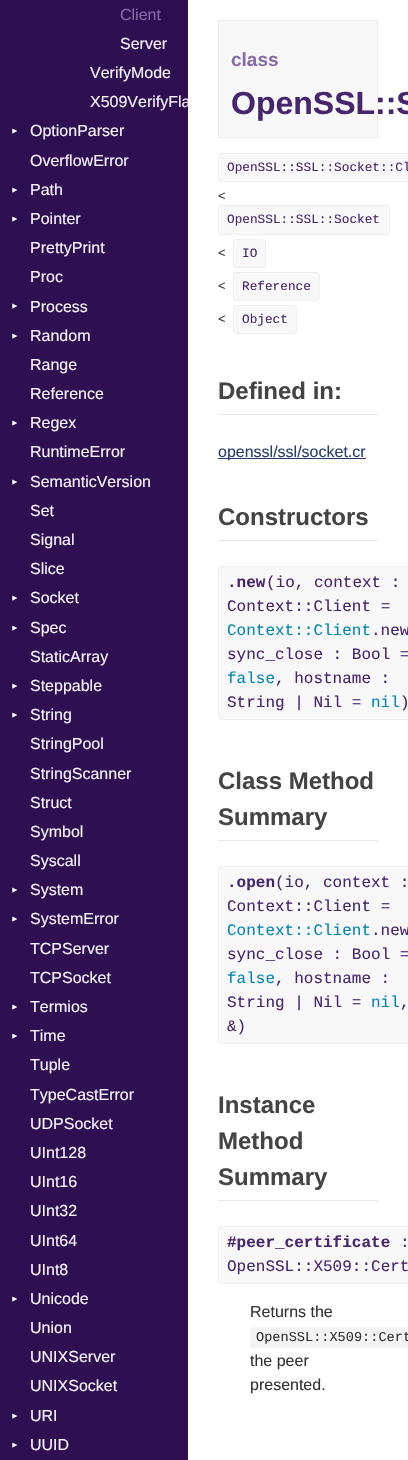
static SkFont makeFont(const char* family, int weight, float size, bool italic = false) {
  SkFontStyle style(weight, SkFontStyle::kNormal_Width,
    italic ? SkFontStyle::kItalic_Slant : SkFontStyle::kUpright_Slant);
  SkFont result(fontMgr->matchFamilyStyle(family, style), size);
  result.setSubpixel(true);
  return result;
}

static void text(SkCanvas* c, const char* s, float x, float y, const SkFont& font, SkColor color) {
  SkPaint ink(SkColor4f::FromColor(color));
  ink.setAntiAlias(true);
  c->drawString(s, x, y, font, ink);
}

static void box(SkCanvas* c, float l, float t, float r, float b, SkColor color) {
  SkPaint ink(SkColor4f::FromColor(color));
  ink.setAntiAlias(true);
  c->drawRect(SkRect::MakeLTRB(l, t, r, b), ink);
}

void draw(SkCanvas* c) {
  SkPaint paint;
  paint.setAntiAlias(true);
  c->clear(0xffffffff);
  box(c, 0, 0, 188, 1460, 0xff2e1052);
  SkFont face1 = makeFont("Liberation Sans", 400, 16);
  text(c, "Client", 120, 20, face1, 0xff866ba6);
  text(c, "Server", 120, 49, face1, 0xfff8f4fd);
  text(c, "VerifyMode", 90, 78, face1, 0xfff8f4fd);
  c->save();
  c->clipRect(SkRect::MakeLTRB(60, 0, 188, 116));
  text(c, "X509VerifyFla", 90, 107, face1, 0xfff8f4fd);
  c->restore();
  SkFont face2 = makeFont("Liberation Sans", 400, 8);
  c->save();
  c->rotate(-90, 17, 135);
  text(c, "▼", 17, 135, face2, 0xffffffff);
  c->restore();
  text(c, "OptionParser", 30, 136, face1, 0xfff8f4fd);
  text(c, "OverflowError", 30, 166, face1, 0xfff8f4fd);
  c->save();
  c->rotate(-90, 17, 194);
  text(c, "▼", 17, 194, face2, 0xffffffff);
  c->restore();
  text(c, "Path", 30, 195, face1, 0xfff8f4fd);
  c->save();
  c->rotate(-90, 17, 223);
  text(c, "▼", 17, 223, face2, 0xffffffff);
  c->restore();
  text(c, "Pointer", 30, 224, face1, 0xfff8f4fd);
  text(c, "PrettyPrint", 30, 253, face1, 0xfff8f4fd);
  text(c, "Proc", 30, 282, face1, 0xfff8f4fd);
  c->save();
  c->rotate(-90, 17, 310);
  text(c, "▼", 17, 310, face2, 0xffffffff);
  c->restore();
  text(c, "Process", 30, 312, face1, 0xfff8f4fd);
  c->save();
  c->rotate(-90, 17, 340);
  text(c, "▼", 17, 340, face2, 0xffffffff);
  c->restore();
  text(c, "Random", 30, 341, face1, 0xfff8f4fd);
  text(c, "Range", 30, 370, face1, 0xfff8f4fd);
  text(c, "Reference", 30, 399, face1, 0xfff8f4fd);
  c->save();
  c->rotate(-90, 17, 427);
  text(c, "▼", 17, 427, face2, 0xffffffff);
  c->restore();
  text(c, "Regex", 30, 428, face1, 0xfff8f4fd);
  text(c, "RuntimeError", 30, 457, face1, 0xfff8f4fd);
  c->save();
  c->rotate(-90, 17, 486);
  text(c, "▼", 17, 486, face2, 0xffffffff);
  c->restore();
  text(c, "SemanticVersion", 30, 487, face1, 0xfff8f4fd);
  text(c, "Set", 30, 516, face1, 0xfff8f4fd);
  text(c, "Signal", 30, 545, face1, 0xfff8f4fd);
  text(c, "Slice", 30, 574, face1, 0xfff8f4fd);
  c->save();
  c->rotate(-90, 17, 602);
  text(c, "▼", 17, 602, face2, 0xffffffff);
  c->restore();
  text(c, "Socket", 30, 603, face1, 0xfff8f4fd);
  c->save();
  c->rotate(-90, 17, 632);
  text(c, "▼", 17, 632, face2, 0xffffffff);
  c->restore();
  text(c, "Spec", 30, 633, face1, 0xfff8f4fd);
  text(c, "StaticArray", 30, 662, face1, 0xfff8f4fd);
  c->save();
  c->rotate(-90, 17, 690);
  text(c, "▼", 17, 690, face2, 0xffffffff);
  c->restore();
  text(c, "Steppable", 30, 691, face1, 0xfff8f4fd);
  c->save();
  c->rotate(-90, 17, 719);
  text(c, "▼", 17, 719, face2, 0xffffffff);
  c->restore();
  text(c, "String", 30, 720, face1, 0xfff8f4fd);
  text(c, "StringPool", 30, 749, face1, 0xfff8f4fd);
  text(c, "StringScanner", 30, 779, face1, 0xfff8f4fd);
  text(c, "Struct", 30, 808, face1, 0xfff8f4fd);
  text(c, "Symbol", 30, 837, face1, 0xfff8f4fd);
  text(c, "Syscall", 30, 866, face1, 0xfff8f4fd);
  c->save();
  c->rotate(-90, 17, 894);
  text(c, "▼", 17, 894, face2, 0xffffffff);
  c->restore();
  text(c, "System", 30, 895, face1, 0xfff8f4fd);
  c->save();
  c->rotate(-90, 17, 923);
  text(c, "▼", 17, 923, face2, 0xffffffff);
  c->restore();
  text(c, "SystemError", 30, 924, face1, 0xfff8f4fd);
  text(c, "TCPServer", 30, 954, face1, 0xfff8f4fd);
  text(c, "TCPSocket", 30, 983, face1, 0xfff8f4fd);
  c->save();
  c->rotate(-90, 17, 1011);
  text(c, "▼", 17, 1011, face2, 0xffffffff);
  c->restore();
  text(c, "Termios", 30, 1012, face1, 0xfff8f4fd);
  c->save();
  c->rotate(-90, 17, 1040);
  text(c, "▼", 17, 1040, face2, 0xffffffff);
  c->restore();
  text(c, "Time", 30, 1041, face1, 0xfff8f4fd);
  text(c, "Tuple", 30, 1070, face1, 0xfff8f4fd);
  text(c, "TypeCastError", 30, 1100, face1, 0xfff8f4fd);
  text(c, "UDPSocket", 30, 1129, face1, 0xfff8f4fd);
  text(c, "UInt128", 30, 1158, face1, 0xfff8f4fd);
  text(c, "UInt16", 30, 1187, face1, 0xfff8f4fd);
  text(c, "UInt32", 30, 1216, face1, 0xfff8f4fd);
  text(c, "UInt64", 30, 1246, face1, 0xfff8f4fd);
  text(c, "UInt8", 30, 1275, face1, 0xfff8f4fd);
  c->save();
  c->rotate(-90, 17, 1303);
  text(c, "▼", 17, 1303, face2, 0xffffffff);
  c->restore();
  text(c, "Unicode", 30, 1304, face1, 0xfff8f4fd);
  text(c, "Union", 30, 1333, face1, 0xfff8f4fd);
  text(c, "UNIXServer", 30, 1362, face1, 0xfff8f4fd);
  text(c, "UNIXSocket", 30, 1391, face1, 0xfff8f4fd);
  c->save();
  c->rotate(-90, 17, 1420);
  text(c, "▼", 17, 1420, face2, 0xffffffff);
  c->restore();
  text(c, "URI", 30, 1421, face1, 0xfff8f4fd);
  c->save();
  c->rotate(-90, 17, 1449);
  text(c, "▼", 17, 1449, face2, 0xffffffff);
  c->restore();
  text(c, "UUID", 30, 1450, face1, 0xfff8f4fd);
  paint.setColor(0xfff8f8f8);
  c->drawRoundRect(SkRect::MakeLTRB(218.5f, 20.5f, 377.5f, 137.5f), 1.5f, 1.5f, paint);
  paint.setStyle(SkPaint::kStroke_Style);
  paint.setStrokeWidth(1);
  paint.setColor(0xffebebeb);
  c->drawRoundRect(SkRect::MakeLTRB(218.5f, 20.5f, 377.5f, 137.5f), 1.5f, 1.5f, paint);
  SkFont face3 = makeFont("Liberation Sans", 700, 19);
  text(c, "class", 231, 66, face3, 0xff866ba6);
  SkFont face4 = makeFont("Liberation Sans", 700, 32);
  text(c, "OpenSSL::S", 231, 114, face4, 0xff47266e);
  paint.setStyle(SkPaint::kFill_Style);
  paint.setColor(0xfff8f8f8);
  c->drawPath(SkPathBuilder().moveTo(221, 153).lineTo(408, 153).lineTo(408, 182).lineTo(221, 182).cubicTo(219.5f, 182, 218, 180.5f, 218, 179).lineTo(218, 156).cubicTo(218, 154.5f, 219.5f, 153, 221, 153).close().detach(), paint);
  paint.setStyle(SkPaint::kStroke_Style);
  paint.setColor(0xfff0f0f0);
  c->drawRoundRect(SkRect::MakeLTRB(218.5f, 153.5f, 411.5f, 181.5f), 2.5f, 2.5f, paint);
  SkFont face5 = makeFont("Liberation Mono", 400, 12.75f);
  text(c, "OpenSSL::SSL::Socket::Cl", 227, 171, face5, 0xff47266e);
  SkFont face6 = makeFont("Liberation Sans", 400, 12.75f);
  text(c, "<", 218, 200, face6, 0xff333333);
  paint.setStyle(SkPaint::kFill_Style);
  paint.setColor(0xfff8f8f8);
  c->drawRoundRect(SkRect::MakeLTRB(218.5f, 205.5f, 389.5f, 234.5f), 2.5f, 2.5f, paint);
  paint.setStyle(SkPaint::kStroke_Style);
  paint.setColor(0xfff0f0f0);
  c->drawRoundRect(SkRect::MakeLTRB(218.5f, 205.5f, 389.5f, 234.5f), 2.5f, 2.5f, paint);
  text(c, "OpenSSL::SSL::Socket", 227, 223, face5, 0xff47266e);
  text(c, "<", 218, 257, face6, 0xff333333);
  paint.setStyle(SkPaint::kFill_Style);
  paint.setColor(0xfff8f8f8);
  c->drawRoundRect(SkRect::MakeLTRB(233.5f, 239.5f, 265.5f, 267.5f), 2.5f, 2.5f, paint);
  paint.setStyle(SkPaint::kStroke_Style);
  paint.setColor(0xfff0f0f0);
  c->drawRoundRect(SkRect::MakeLTRB(233.5f, 239.5f, 265.5f, 267.5f), 2.5f, 2.5f, paint);
  text(c, "IO", 242, 257, face5, 0xff47266e);
  text(c, "<", 218, 290, face6, 0xff333333);
  paint.setStyle(SkPaint::kFill_Style);
  paint.setColor(0xfff8f8f8);
  c->drawRoundRect(SkRect::MakeLTRB(233.5f, 272.5f, 319.5f, 300.5f), 2.5f, 2.5f, paint);
  paint.setStyle(SkPaint::kStroke_Style);
  paint.setColor(0xfff0f0f0);
  c->drawRoundRect(SkRect::MakeLTRB(233.5f, 272.5f, 319.5f, 300.5f), 2.5f, 2.5f, paint);
  text(c, "Reference", 242, 290, face5, 0xff47266e);
  text(c, "<", 218, 323, face6, 0xff333333);
  paint.setStyle(SkPaint::kFill_Style);
  paint.setColor(0xfff8f8f8);
  c->drawRoundRect(SkRect::MakeLTRB(233.5f, 305.5f, 296.5f, 333.5f), 2.5f, 2.5f, paint);
  paint.setStyle(SkPaint::kStroke_Style);
  paint.setColor(0xfff0f0f0);
  c->drawRoundRect(SkRect::MakeLTRB(233.5f, 305.5f, 296.5f, 333.5f), 2.5f, 2.5f, paint);
  text(c, "Object", 242, 323, face5, 0xff47266e);
  box(c, 218, 414, 378, 415, 0xffe6e6e6);
  SkFont face7 = makeFont("Liberation Sans", 700, 24);
  text(c, "Defined in:", 218, 399, face7, 0xff444444);
  box(c, 218, 458, 366, 459, 0xff263f6c);
  text(c, "openssl/ssl/socket.cr", 218, 457, face1, 0xff263f6c);
  box(c, 218, 540, 378, 541, 0xffe6e6e6);
  text(c, "Constructors", 218, 525, face7, 0xff444444);
  paint.setStyle(SkPaint::kFill_Style);
  paint.setColor(0xfff8f8f8);
  c->drawPath(SkPathBuilder().moveTo(221, 566).lineTo(408, 566).lineTo(408, 720).lineTo(221, 720).cubicTo(219.5f, 720, 218, 718.5f, 218, 717).lineTo(218, 569).cubicTo(218, 567.5f, 219.5f, 566, 221, 566).close().detach(), paint);
  paint.setStyle(SkPaint::kStroke_Style);
  paint.setColor(0xfff0f0f0);
  c->drawRoundRect(SkRect::MakeLTRB(218.5f, 566.5f, 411.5f, 719.5f), 2.5f, 2.5f, paint);
  SkFont face8 = makeFont("Liberation Mono", 700, 16);
  text(c, ".new", 227, 587, face8, 0xff47266e);
  SkFont face9 = makeFont("Liberation Mono", 400, 16);
  text(c, "(io, context :", 266, 587, face9, 0xff47266e);
  text(c, "Context::Client =", 227, 611, face9, 0xff47266e);
  text(c, "Context::Client", 227, 635, face9, 0xff0086b3);
  text(c, ".new", 371, 635, face9, 0xff47266e);
  text(c, "sync_close : Bool =", 227, 659, face9, 0xff47266e);
  text(c, "false", 227, 683, face9, 0xff0086b3);
  text(c, ", hostname :", 275, 683, face9, 0xff47266e);
  text(c, "String | Nil =", 227, 707, face9, 0xff47266e);
  text(c, "nil", 371, 707, face9, 0xff0086b3);
  text(c, ")", 400, 707, face9, 0xff47266e);
  box(c, 218, 840, 378, 841, 0xffe6e6e6);
  text(c, "Class Method", 218, 789, face7, 0xff444444);
  text(c, "Summary", 218, 825, face7, 0xff444444);
  paint.setStyle(SkPaint::kFill_Style);
  paint.setColor(0xfff8f8f8);
  c->drawPath(SkPathBuilder().moveTo(221, 866).lineTo(408, 866).lineTo(408, 1044).lineTo(221, 1044).cubicTo(219.5f, 1044, 218, 1042.5f, 218, 1041).lineTo(218, 869).cubicTo(218, 867.5f, 219.5f, 866, 221, 866).close().detach(), paint);
  paint.setStyle(SkPaint::kStroke_Style);
  paint.setColor(0xfff0f0f0);
  c->drawRoundRect(SkRect::MakeLTRB(218.5f, 866.5f, 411.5f, 1043.5f), 2.5f, 2.5f, paint);
  text(c, ".open", 227, 887, face8, 0xff47266e);
  text(c, "(io, context :", 275, 887, face9, 0xff47266e);
  text(c, "Context::Client =", 227, 911, face9, 0xff47266e);
  text(c, "Context::Client", 227, 935, face9, 0xff0086b3);
  text(c, ".new", 371, 935, face9, 0xff47266e);
  text(c, "sync_close : Bool =", 227, 959, face9, 0xff47266e);
  text(c, "false", 227, 983, face9, 0xff0086b3);
  text(c, ", hostname :", 275, 983, face9, 0xff47266e);
  text(c, "String | Nil =", 227, 1007, face9, 0xff47266e);
  text(c, "nil", 371, 1007, face9, 0xff0086b3);
  text(c, ",", 400, 1007, face9, 0xff47266e);
  text(c, "&)", 227, 1031, face9, 0xff47266e);
  box(c, 218, 1200, 378, 1201, 0xffe6e6e6);
  text(c, "Instance", 218, 1113, face7, 0xff444444);
  text(c, "Method", 218, 1149, face7, 0xff444444);
  text(c, "Summary", 218, 1185, face7, 0xff444444);
  paint.setStyle(SkPaint::kFill_Style);
  paint.setColor(0xfff8f8f8);
  c->drawPath(SkPathBuilder().moveTo(221, 1226).lineTo(408, 1226).lineTo(408, 1284).lineTo(221, 1284).cubicTo(219.5f, 1284, 218, 1282.5f, 218, 1281).lineTo(218, 1229).cubicTo(218, 1227.5f, 219.5f, 1226, 221, 1226).close().detach(), paint);
  paint.setStyle(SkPaint::kStroke_Style);
  paint.setColor(0xfff0f0f0);
  c->drawRoundRect(SkRect::MakeLTRB(218.5f, 1226.5f, 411.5f, 1283.5f), 2.5f, 2.5f, paint);
  text(c, "#peer_certificate", 227, 1247, face8, 0xff47266e);
  text(c, ":", 400, 1247, face9, 0xff47266e);
  text(c, "OpenSSL::X509::Cert", 227, 1271, face9, 0xff47266e);
  text(c, "Returns the", 250, 1317, face1, 0xff333333);
  paint.setStyle(SkPaint::kFill_Style);
  paint.setColor(0xfff4f4f4);
  c->drawPath(SkPathBuilder().moveTo(253, 1327).lineTo(408, 1327).lineTo(408, 1348).lineTo(253, 1348).cubicTo(251.5f, 1348, 250, 1346.5f, 250, 1345).lineTo(250, 1330).cubicTo(250, 1328.5f, 251.5f, 1327, 253, 1327).close().detach(), paint);
  SkFont face10 = makeFont("Liberation Mono", 400, 13.6f);
  text(c, "OpenSSL::X509::Cert", 256, 1341, face10, 0xff333333);
  text(c, "the peer", 250, 1366, face1, 0xff333333);
  text(c, "presented.", 250, 1390, face1, 0xff333333);
}
